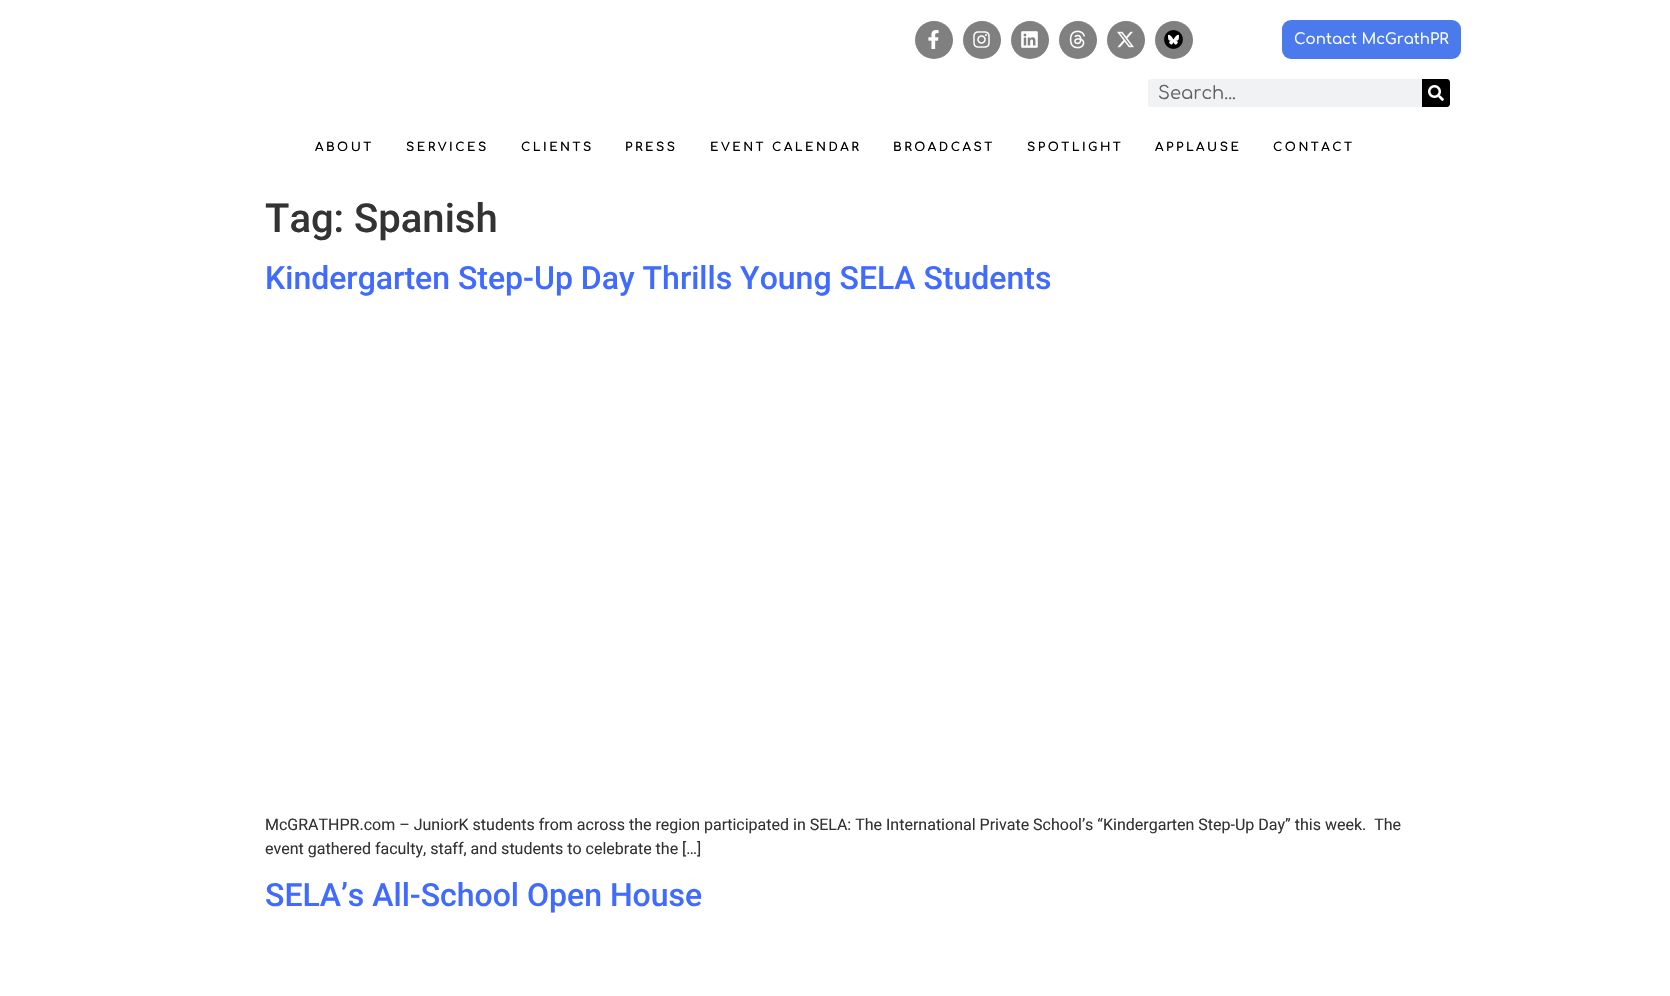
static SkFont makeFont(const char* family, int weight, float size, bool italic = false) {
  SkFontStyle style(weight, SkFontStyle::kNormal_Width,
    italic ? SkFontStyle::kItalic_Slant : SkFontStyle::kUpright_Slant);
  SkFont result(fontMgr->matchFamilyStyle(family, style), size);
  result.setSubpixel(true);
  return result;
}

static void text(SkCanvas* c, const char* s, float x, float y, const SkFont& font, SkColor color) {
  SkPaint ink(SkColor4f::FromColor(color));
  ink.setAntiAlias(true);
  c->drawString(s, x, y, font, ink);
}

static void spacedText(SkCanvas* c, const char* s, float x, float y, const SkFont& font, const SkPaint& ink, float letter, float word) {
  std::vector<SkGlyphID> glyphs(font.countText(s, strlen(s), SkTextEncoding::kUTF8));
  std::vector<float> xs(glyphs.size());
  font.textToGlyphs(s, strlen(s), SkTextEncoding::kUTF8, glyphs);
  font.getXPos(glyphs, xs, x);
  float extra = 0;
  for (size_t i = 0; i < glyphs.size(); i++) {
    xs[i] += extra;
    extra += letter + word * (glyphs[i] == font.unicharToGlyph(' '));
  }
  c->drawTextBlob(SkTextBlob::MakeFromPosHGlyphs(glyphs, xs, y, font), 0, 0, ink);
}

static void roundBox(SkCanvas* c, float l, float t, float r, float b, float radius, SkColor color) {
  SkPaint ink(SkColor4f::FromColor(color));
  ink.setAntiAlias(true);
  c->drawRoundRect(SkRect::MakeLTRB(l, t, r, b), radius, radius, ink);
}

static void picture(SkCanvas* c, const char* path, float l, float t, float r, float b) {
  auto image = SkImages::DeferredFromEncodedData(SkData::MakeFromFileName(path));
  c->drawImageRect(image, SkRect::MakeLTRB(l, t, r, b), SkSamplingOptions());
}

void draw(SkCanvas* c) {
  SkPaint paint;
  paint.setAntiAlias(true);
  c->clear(0xffffffff);
  paint.setColor(0xff818080);
  c->drawCircle(934, 40, 19, paint);
  picture(c, "img_01.png", 928, 30, 939, 49);
  c->drawCircle(982, 40, 19, paint);
  picture(c, "img_02.png", 973, 31, 990, 48);
  c->drawCircle(1030, 40, 19, paint);
  picture(c, "img_03.png", 1021, 31, 1038, 48);
  c->drawCircle(1078, 40, 19, paint);
  picture(c, "img_04.png", 1069, 30, 1085, 49);
  c->drawCircle(1126, 40, 19, paint);
  picture(c, "img_05.png", 1117, 31, 1134, 48);
  c->drawCircle(1174, 40, 19, paint);
  picture(c, "img_06.png", 1164, 30, 1183, 49);
  roundBox(c, 1282, 20, 1461, 59, 9, 0xff4a7aec);
  SkFont face1 = makeFont("Comfortaa", 500, 15);
  text(c, "Contact McGrathPR", 1294, 44, face1, 0xffffffff);
  roundBox(c, 1148, 79, 1450, 107, 3, 0xfff1f2f3);
  SkFont face2 = makeFont("Comfortaa", 400, 18);
  text(c, "Search...", 1158, 99, face2, 0xff606161);
  paint.setColor(0xff000000);
  c->drawPath(SkPathBuilder().moveTo(1422, 79).lineTo(1447, 79).cubicTo(1448.5f, 79, 1450, 80.5f, 1450, 82).lineTo(1450, 104).cubicTo(1450, 105.5f, 1448.5f, 107, 1447, 107).lineTo(1422, 107).close().detach(), paint);
  picture(c, "img_07.png", 1428, 85, 1444, 101);
  SkFont face3 = makeFont("Comfortaa", 700, 12);
  spacedText(c, "ABOUT", 315, 151, face3, paint, 2.5f, 0);
  spacedText(c, "SERVICES", 406, 151, face3, paint, 2.5f, 0);
  spacedText(c, "CLIENTS", 521, 151, face3, paint, 2.5f, 0);
  spacedText(c, "PRESS", 625, 151, face3, paint, 2.5f, 0);
  spacedText(c, "EVENT CALENDAR", 710, 151, face3, paint, 2.5f, 0);
  spacedText(c, "BROADCAST", 893, 151, face3, paint, 2.5f, 0);
  spacedText(c, "SPOTLIGHT", 1027, 151, face3, paint, 2.5f, 0);
  spacedText(c, "APPLAUSE", 1155, 151, face3, paint, 2.5f, 0);
  spacedText(c, "CONTACT", 1273, 151, face3, paint, 2.5f, 0);
  SkFont face4 = makeFont("Roboto", 500, 40);
  text(c, "Tag: Spanish", 265, 232, face4, 0xff333333);
  SkFont face5 = makeFont("Roboto", 500, 32);
  text(c, "Kindergarten Step-Up Day Thrills Young SELA Students", 265, 289, face5, 0xff416bff);
  SkFont face6 = makeFont("Roboto", 400, 16);
  text(c, "McGRATHPR.com – JuniorK students from across the region participated in SELA: The International Private School’s “Kindergarten Step-Up Day” this week.  The", 265, 830, face6, 0xff333333);
  text(c, "event gathered faculty, staff, and students to celebrate the […]", 265, 854, face6, 0xff333333);
  text(c, "SELA’s All-School Open House", 265, 906, face5, 0xff416bff);
}
